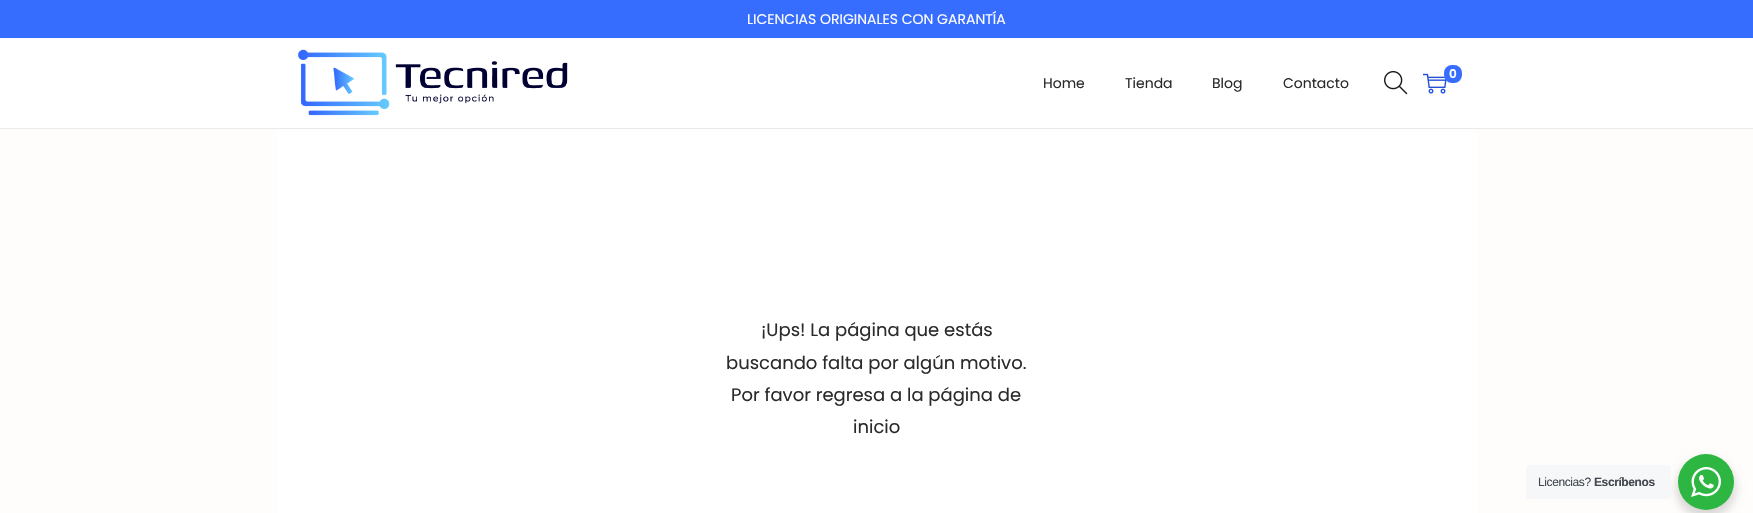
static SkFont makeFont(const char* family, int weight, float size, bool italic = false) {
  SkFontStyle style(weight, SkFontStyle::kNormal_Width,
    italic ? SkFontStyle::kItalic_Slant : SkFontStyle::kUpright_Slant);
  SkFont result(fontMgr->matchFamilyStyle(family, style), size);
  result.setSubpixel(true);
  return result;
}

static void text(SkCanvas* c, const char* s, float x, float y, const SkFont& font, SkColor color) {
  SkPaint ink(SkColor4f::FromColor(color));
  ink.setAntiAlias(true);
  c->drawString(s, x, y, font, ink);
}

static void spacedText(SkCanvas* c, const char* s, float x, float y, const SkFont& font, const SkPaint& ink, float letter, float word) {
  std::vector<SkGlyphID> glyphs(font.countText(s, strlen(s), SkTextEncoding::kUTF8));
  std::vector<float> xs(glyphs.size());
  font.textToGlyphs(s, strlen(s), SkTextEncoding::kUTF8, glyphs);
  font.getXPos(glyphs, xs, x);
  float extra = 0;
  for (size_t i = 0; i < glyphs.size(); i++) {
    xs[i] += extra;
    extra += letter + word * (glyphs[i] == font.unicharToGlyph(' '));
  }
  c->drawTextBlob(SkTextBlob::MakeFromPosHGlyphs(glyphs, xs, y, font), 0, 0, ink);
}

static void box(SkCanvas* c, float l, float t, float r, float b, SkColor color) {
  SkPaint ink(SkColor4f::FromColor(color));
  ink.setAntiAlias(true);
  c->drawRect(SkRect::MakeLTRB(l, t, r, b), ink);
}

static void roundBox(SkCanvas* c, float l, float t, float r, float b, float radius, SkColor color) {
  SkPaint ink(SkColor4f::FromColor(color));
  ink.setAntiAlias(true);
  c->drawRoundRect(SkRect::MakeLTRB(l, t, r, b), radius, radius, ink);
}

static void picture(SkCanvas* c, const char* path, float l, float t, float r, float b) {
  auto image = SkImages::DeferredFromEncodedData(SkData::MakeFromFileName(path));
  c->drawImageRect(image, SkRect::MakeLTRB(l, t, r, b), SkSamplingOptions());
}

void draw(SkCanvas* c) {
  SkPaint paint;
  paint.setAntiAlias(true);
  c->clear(0xfffffcfc);
  box(c, 0, 0, 1753, 38, 0xff376dff);
  SkFont face1 = makeFont("Poppins", 400, 14);
  text(c, "LICENCIAS ORIGINALES CON GARANTÍA", 747, 24, face1, 0xffffffff);
  box(c, 0, 38, 1753, 128, 0xffffffff);
  box(c, 0, 128, 1753, 129, 0xffeaeaea);
  picture(c, "img_01.png", 298, 49, 568, 116);
  picture(c, "img_02.png", 1384, 71, 1408, 95);
  picture(c, "img_03.png", 1423, 73, 1447, 94);
  roundBox(c, 1444, 65, 1462, 83, 8, 0xff376dff);
  SkFont face2 = makeFont("Poppins", 600, 12);
  text(c, "0", 1449, 78, face2, 0xffffffff);
  text(c, "Home", 1043, 88, face1, 0xff2b2b2b);
  text(c, "Tienda", 1125, 88, face1, 0xff2b2b2b);
  text(c, "Blog", 1212, 88, face1, 0xff2b2b2b);
  text(c, "Contacto", 1283, 88, face1, 0xff2b2b2b);
  box(c, 277, 129, 1477, 513, 0xffffffff);
  SkFont face3 = makeFont("Poppins", 400, 18);
  text(c, "¡Ups! La página que estás", 761, 336, face3, 0xff2b2b2b);
  text(c, "buscando falta por algún motivo.", 726, 369, face3, 0xff2b2b2b);
  text(c, "Por favor regresa a la página de", 731, 401, face3, 0xff2b2b2b);
  text(c, "inicio", 853, 433, face3, 0xff2b2b2b);
  paint.setColor(0x24000000);
  paint.setMaskFilter(SkMaskFilter::MakeBlur(kNormal_SkBlurStyle, 4));
  c->drawRoundRect(SkRect::MakeLTRB(1676, 458, 1736, 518), 30, 30, paint);
  paint.setMaskFilter(nullptr);
  roundBox(c, 1526, 465, 1671, 499, 4, 0xfff5f7f9);
  SkFont face4 = makeFont("Liberation Sans", 400, 12);
  paint.setColor(0xff43474e);
  spacedText(c, "Licencias?", 1538, 486, face4, paint, -0.4f, 0);
  SkFont face5 = makeFont("Liberation Sans", 700, 12);
  spacedText(c, "Escríbenos", 1594, 486, face5, paint, -0.4f, 0);
  paint.setColor(0xff2db742);
  c->drawCircle(1706, 482, 28, paint);
  picture(c, "img_04.png", 1691, 467, 1721, 497);
}
